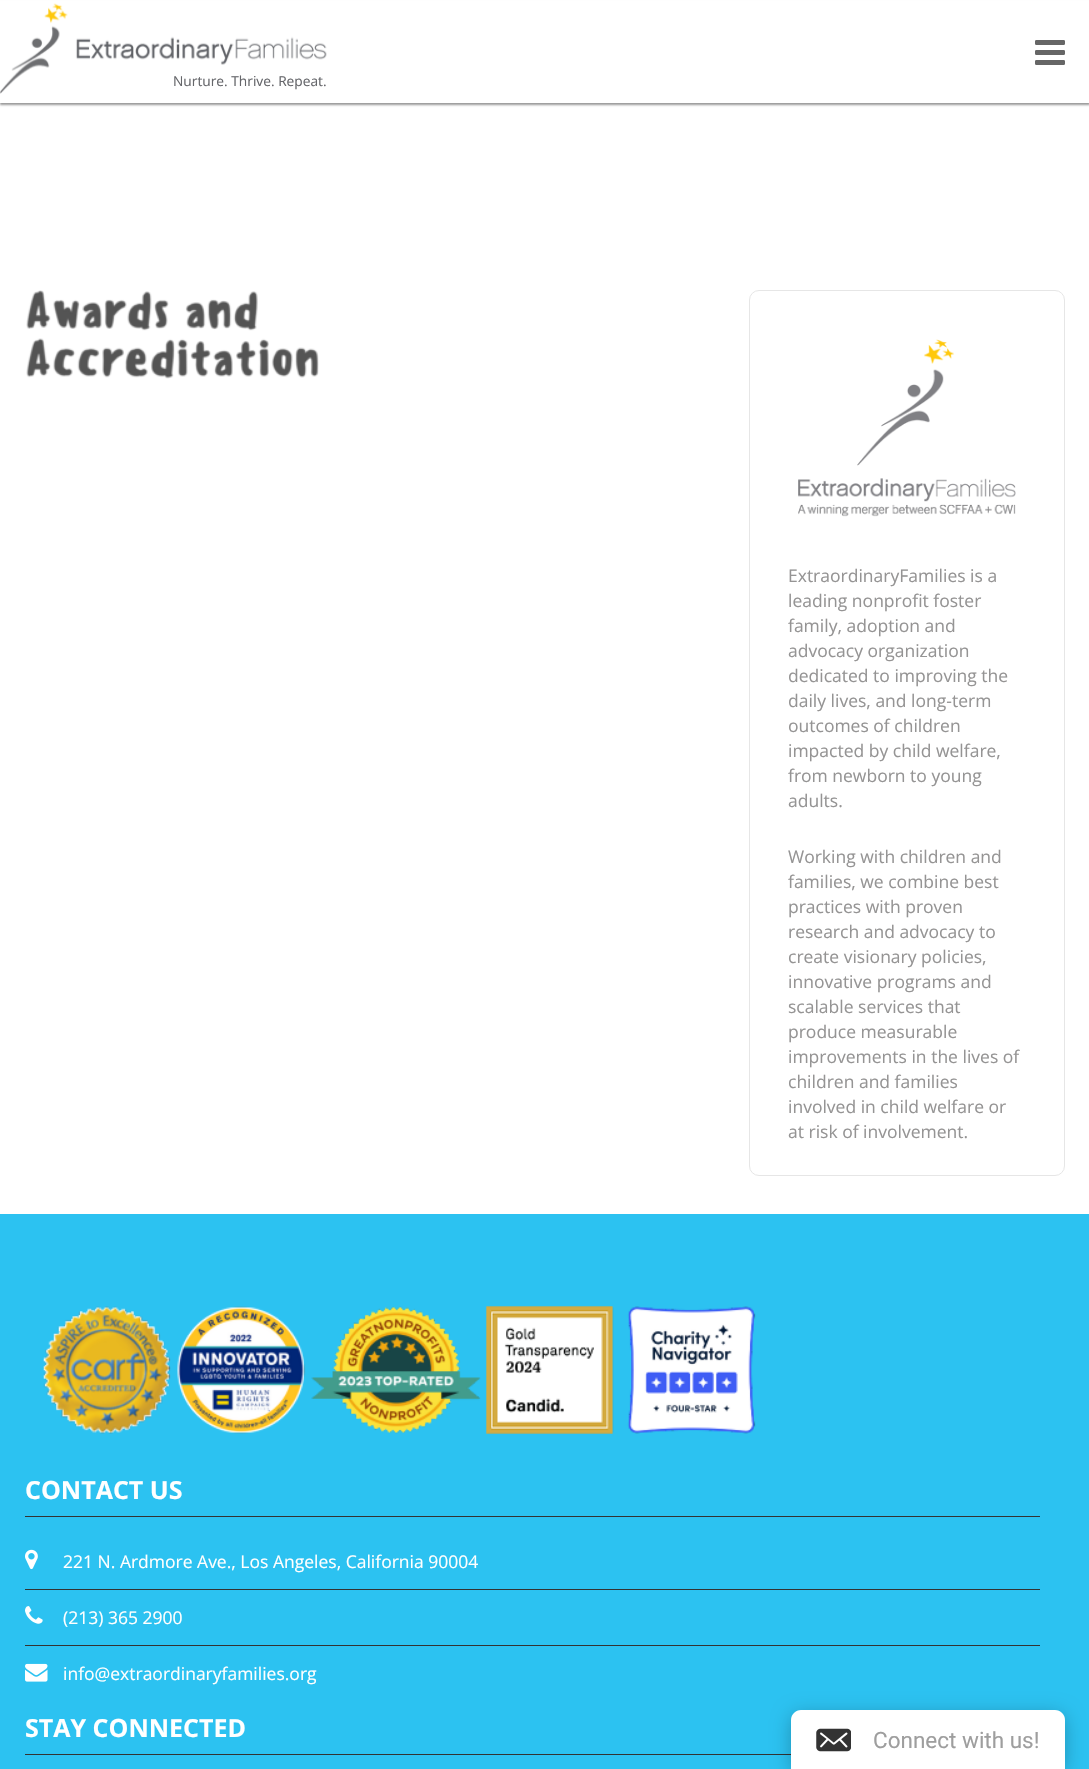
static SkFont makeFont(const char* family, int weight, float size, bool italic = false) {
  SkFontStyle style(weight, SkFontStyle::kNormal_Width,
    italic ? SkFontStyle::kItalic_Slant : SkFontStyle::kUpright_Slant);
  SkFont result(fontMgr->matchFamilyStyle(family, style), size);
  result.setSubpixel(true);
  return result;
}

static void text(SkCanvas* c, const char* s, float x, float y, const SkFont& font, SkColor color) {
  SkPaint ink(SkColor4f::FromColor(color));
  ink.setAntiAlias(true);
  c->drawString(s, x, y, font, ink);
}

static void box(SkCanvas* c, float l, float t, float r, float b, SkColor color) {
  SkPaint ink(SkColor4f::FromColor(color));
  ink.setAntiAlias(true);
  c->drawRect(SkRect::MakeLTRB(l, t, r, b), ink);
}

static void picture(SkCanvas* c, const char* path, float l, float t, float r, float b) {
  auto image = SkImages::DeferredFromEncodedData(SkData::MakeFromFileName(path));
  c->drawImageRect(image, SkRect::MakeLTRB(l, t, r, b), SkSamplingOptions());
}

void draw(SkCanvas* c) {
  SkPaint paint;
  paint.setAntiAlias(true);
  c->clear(0xffffffff);
  paint.setColor(0xff999999);
  paint.setMaskFilter(SkMaskFilter::MakeBlur(kNormal_SkBlurStyle, 1));
  c->drawRect(SkRect::MakeLTRB(0, 3, 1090, 105), paint);
  paint.setMaskFilter(nullptr);
  box(c, 0, 1, 1089, 103, 0xffffffff);
  picture(c, "img_01.png", 1035, 40, 1065, 65);
  picture(c, "img_02.png", 0, 3, 327, 94);
  SkFont face1 = makeFont("Open Sans", 400, 13.75f);
  text(c, "Nurture. Thrive. Repeat.", 173, 86, face1, 0xff65666a);
  picture(c, "img_03.png", 26, 290, 319, 379);
  paint.setStyle(SkPaint::kStroke_Style);
  paint.setStrokeWidth(1);
  paint.setColor(0xffe6e6e6);
  c->drawRoundRect(SkRect::MakeLTRB(749.5f, 290.5f, 1064.5f, 1175.5f), 9.5f, 9.5f, paint);
  picture(c, "img_04.png", 798, 339, 1016, 517);
  SkFont face2 = makeFont("Open Sans", 400, 17.5f);
  text(c, "ExtraordinaryFamilies is a", 788, 582, face2, 0xff959494);
  text(c, "leading nonprofit foster", 788, 607, face2, 0xff959494);
  text(c, "family, adoption and", 788, 632, face2, 0xff959494);
  text(c, "advocacy organization", 788, 657, face2, 0xff959494);
  text(c, "dedicated to improving the", 788, 682, face2, 0xff959494);
  text(c, "daily lives, and long-term", 788, 707, face2, 0xff959494);
  text(c, "outcomes of children", 788, 732, face2, 0xff959494);
  text(c, "impacted by child welfare,", 788, 757, face2, 0xff959494);
  text(c, "from newborn to young", 788, 782, face2, 0xff959494);
  text(c, "adults.", 788, 807, face2, 0xff959494);
  text(c, "Working with children and", 788, 863, face2, 0xff959494);
  text(c, "families, we combine best", 788, 888, face2, 0xff959494);
  text(c, "practices with proven", 788, 913, face2, 0xff959494);
  text(c, "research and advocacy to", 788, 938, face2, 0xff959494);
  text(c, "create visionary policies,", 788, 963, face2, 0xff959494);
  text(c, "innovative programs and", 788, 988, face2, 0xff959494);
  text(c, "scalable services that", 788, 1013, face2, 0xff959494);
  text(c, "produce measurable", 788, 1038, face2, 0xff959494);
  text(c, "improvements in the lives of", 788, 1063, face2, 0xff959494);
  text(c, "children and families", 788, 1088, face2, 0xff959494);
  text(c, "involved in child welfare or", 788, 1113, face2, 0xff959494);
  text(c, "at risk of involvement.", 788, 1138, face2, 0xff959494);
  box(c, 0, 1214, 1089, 1769, 0xff2cc2f1);
  picture(c, "img_05.png", 43, 1306, 756, 1434);
  box(c, 25, 1516, 1040, 1517, 0xff333333);
  SkFont face3 = makeFont("Open Sans", 700, 25);
  text(c, "CONTACT US", 25, 1499, face3, 0xffffffff);
  box(c, 25, 1589, 1040, 1590, 0xff333333);
  picture(c, "img_06.png", 25, 1549, 38, 1570);
  text(c, "221 N. Ardmore Ave., Los Angeles, California 90004", 63, 1568, face2, 0xffffffff);
  box(c, 25, 1645, 1040, 1646, 0xff333333);
  picture(c, "img_07.png", 25, 1606, 43, 1624);
  text(c, "(213) 365 2900", 63, 1624, face2, 0xffffffff);
  picture(c, "img_08.png", 25, 1663, 48, 1682);
  text(c, "info@extraordinaryfamilies.org", 63, 1680, face2, 0xffffffff);
  box(c, 25, 1754, 791, 1755, 0xff333333);
  text(c, "STAY CONNECTED", 25, 1737, face3, 0xffffffff);
  paint.setStyle(SkPaint::kFill_Style);
  paint.setColor(0x40000000);
  paint.setMaskFilter(SkMaskFilter::MakeBlur(kNormal_SkBlurStyle, 9.5f));
  c->drawRoundRect(SkRect::MakeLTRB(791, 1714, 1065, 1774), 10, 10, paint);
  paint.setMaskFilter(nullptr);
  paint.setColor(0xffffffff);
  c->drawPath(SkPathBuilder().moveTo(801, 1710).lineTo(1055, 1710).cubicTo(1060.5f, 1710, 1065, 1714.5f, 1065, 1720).lineTo(1065, 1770).lineTo(791, 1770).lineTo(791, 1720).cubicTo(791, 1714.5f, 795.5f, 1710, 801, 1710).close().detach(), paint);
  picture(c, "img_09.png", 816, 1728, 851, 1752);
  SkFont face4 = makeFont("Roboto", 400, 22.5f);
  text(c, "Connect with us!", 873, 1748, face4, 0xff9e9e9e);
}
